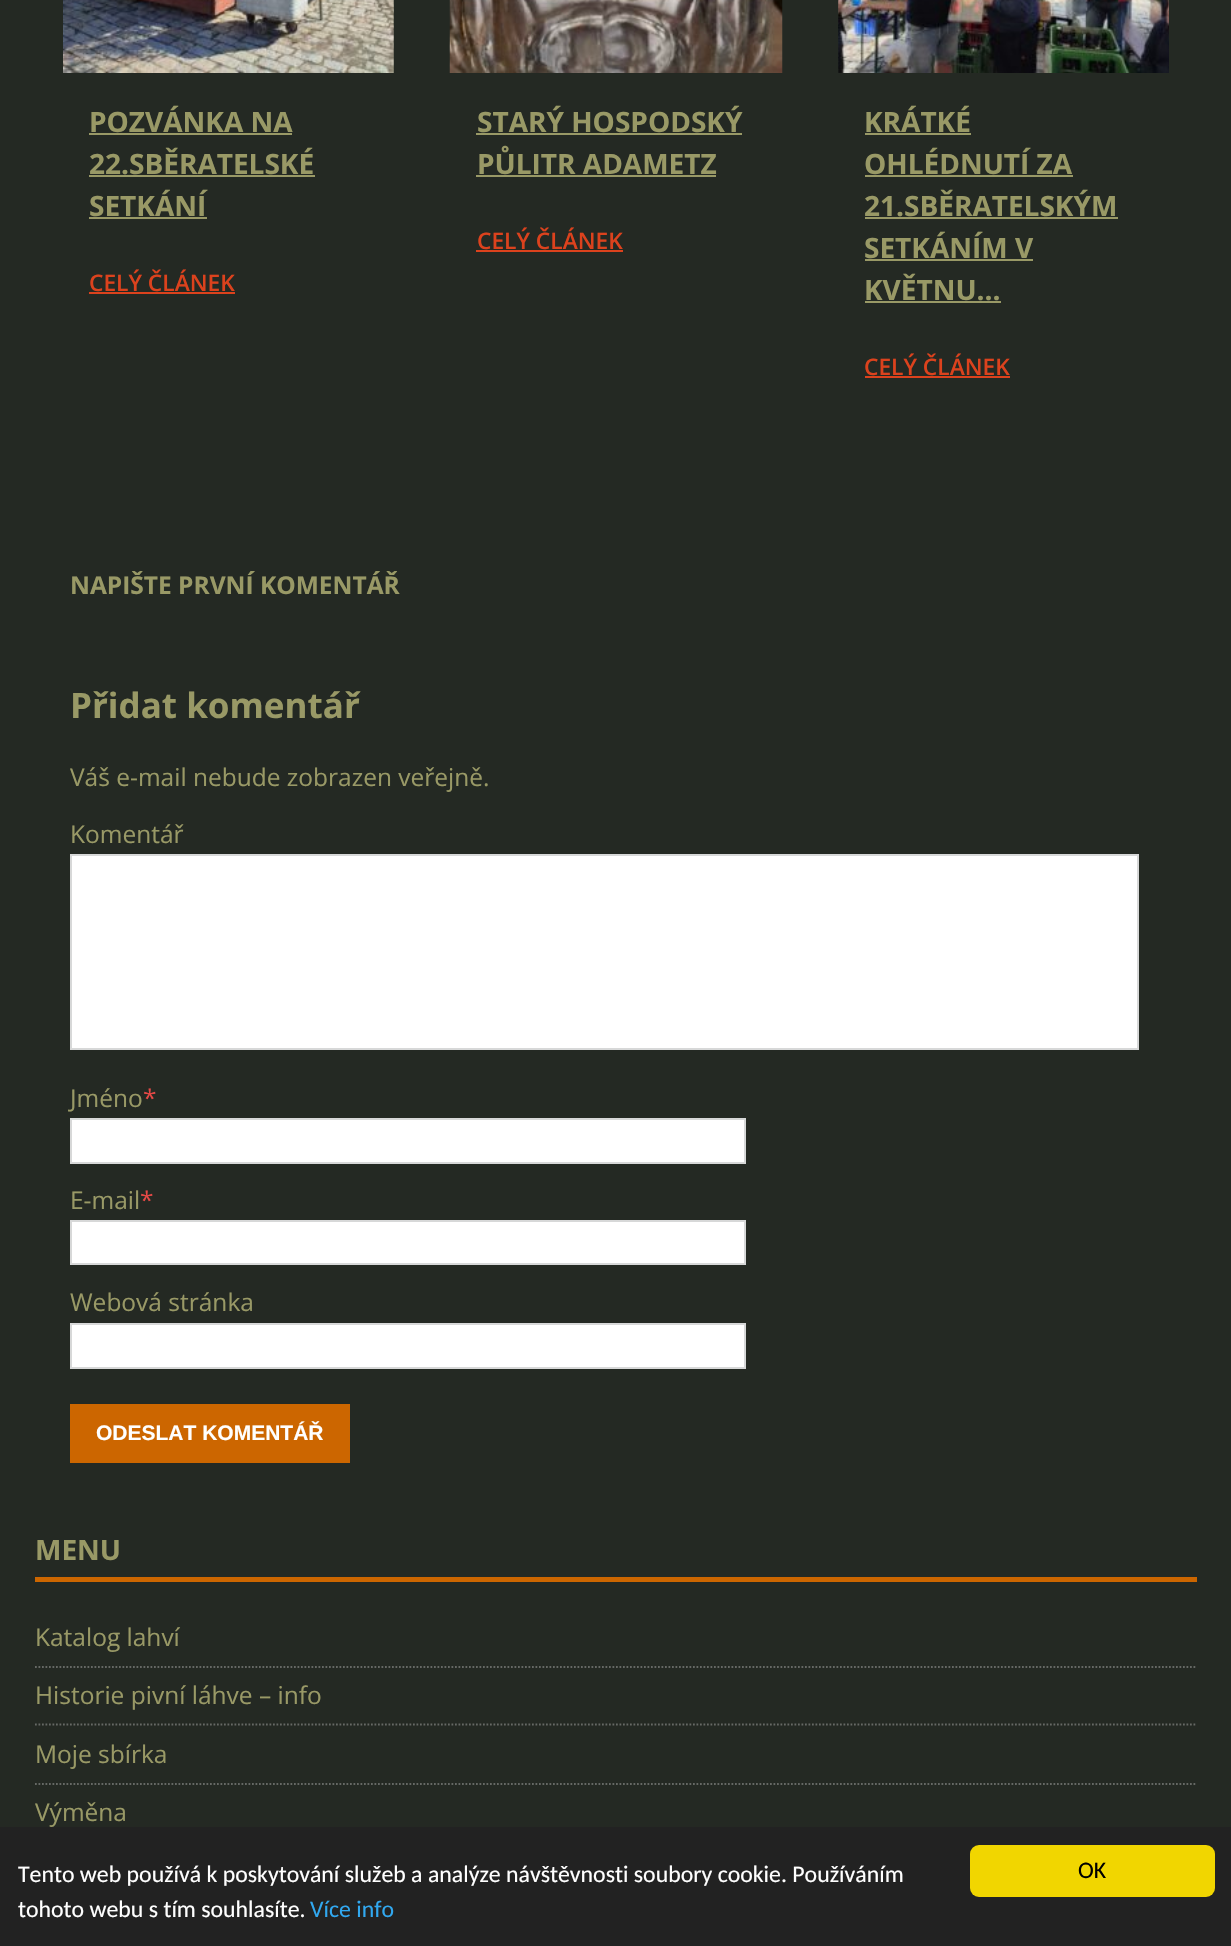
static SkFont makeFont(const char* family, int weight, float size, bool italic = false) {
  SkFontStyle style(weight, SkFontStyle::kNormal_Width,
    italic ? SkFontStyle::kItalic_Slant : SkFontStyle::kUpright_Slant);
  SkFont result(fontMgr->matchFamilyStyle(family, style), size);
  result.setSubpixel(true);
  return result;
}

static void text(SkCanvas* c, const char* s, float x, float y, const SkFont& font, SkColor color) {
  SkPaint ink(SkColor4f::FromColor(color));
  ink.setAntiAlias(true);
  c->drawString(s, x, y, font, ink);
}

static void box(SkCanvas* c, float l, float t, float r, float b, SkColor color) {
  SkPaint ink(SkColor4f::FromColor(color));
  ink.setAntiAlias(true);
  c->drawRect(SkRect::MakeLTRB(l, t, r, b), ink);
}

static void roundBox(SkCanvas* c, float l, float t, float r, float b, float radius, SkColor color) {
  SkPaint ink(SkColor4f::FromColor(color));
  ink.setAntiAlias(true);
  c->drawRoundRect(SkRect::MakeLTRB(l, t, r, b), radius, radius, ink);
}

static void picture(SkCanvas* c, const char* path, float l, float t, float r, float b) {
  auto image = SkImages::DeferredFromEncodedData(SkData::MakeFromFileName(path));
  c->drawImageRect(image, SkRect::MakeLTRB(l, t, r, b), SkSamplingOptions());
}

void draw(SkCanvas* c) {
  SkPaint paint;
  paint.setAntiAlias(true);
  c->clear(0xff242923);
  picture(c, "img_01.png", 63, 0, 394, 73);
  SkFont face1 = makeFont("Open Sans", 700, 28);
  text(c, "POZVÁNKA NA", 89, 132, face1, 0xff999966);
  box(c, 89, 133, 292, 135, 0xff999966);
  text(c, "22.SBĚRATELSKÉ", 89, 174, face1, 0xff999966);
  box(c, 89, 175, 315, 177, 0xff999966);
  text(c, "SETKÁNÍ", 89, 216, face1, 0xff999966);
  box(c, 89, 217, 207, 219, 0xff999966);
  SkFont face2 = makeFont("Open Sans", 600, 22.75f);
  text(c, "CELÝ ČLÁNEK", 89, 291, face2, 0xffdc421d);
  box(c, 89, 292, 235, 294, 0xffdc421d);
  picture(c, "img_02.png", 449, 0, 783, 73);
  text(c, "STARÝ HOSPODSKÝ", 477, 132, face1, 0xff999966);
  box(c, 476, 133, 742, 135, 0xff999966);
  text(c, "PŮLITR ADAMETZ", 477, 174, face1, 0xff999966);
  box(c, 476, 175, 716, 177, 0xff999966);
  text(c, "CELÝ ČLÁNEK", 477, 249, face2, 0xffdc421d);
  box(c, 476, 250, 623, 252, 0xffdc421d);
  picture(c, "img_03.png", 838, 0, 1169, 73);
  text(c, "KRÁTKÉ", 864, 132, face1, 0xff999966);
  box(c, 865, 133, 971, 135, 0xff999966);
  text(c, "OHLÉDNUTÍ ZA", 864, 174, face1, 0xff999966);
  box(c, 865, 175, 1073, 177, 0xff999966);
  text(c, "21.SBĚRATELSKÝM", 864, 216, face1, 0xff999966);
  box(c, 865, 217, 1118, 219, 0xff999966);
  text(c, "SETKÁNÍM V", 864, 258, face1, 0xff999966);
  box(c, 865, 259, 1033, 261, 0xff999966);
  text(c, "KVĚTNU...", 864, 300, face1, 0xff999966);
  box(c, 865, 301, 1001, 303, 0xff999966);
  text(c, "CELÝ ČLÁNEK", 864, 375, face2, 0xffdc421d);
  box(c, 865, 376, 1010, 378, 0xffdc421d);
  SkFont face3 = makeFont("Open Sans", 700, 24.5f);
  text(c, "NAPIŠTE PRVNÍ KOMENTÁŘ", 70, 594, face3, 0xff999966);
  SkFont face4 = makeFont("Open Sans", 700, 35);
  text(c, "Přidat komentář", 70, 718, face4, 0xff999966);
  SkFont face5 = makeFont("Open Sans", 400, 24.5f);
  text(c, "Váš e-mail nebude zobrazen veřejně.", 70, 786, face5, 0xff999966);
  text(c, "Komentář", 70, 843, face5, 0xff999966);
  paint.setColor(0xffffffff);
  c->drawRect(SkRect::MakeLTRB(71, 855, 1138, 1049), paint);
  paint.setStyle(SkPaint::kStroke_Style);
  paint.setStrokeWidth(2);
  paint.setColor(0xffd7d8d8);
  c->drawRect(SkRect::MakeLTRB(71, 855, 1138, 1049), paint);
  text(c, "Jméno", 70, 1107, face5, 0xff999966);
  text(c, "*", 143, 1107, face5, 0xffe64946);
  paint.setStyle(SkPaint::kFill_Style);
  paint.setColor(0xffffffff);
  c->drawRect(SkRect::MakeLTRB(71, 1119, 745, 1163), paint);
  paint.setStyle(SkPaint::kStroke_Style);
  paint.setColor(0xffd7d8d8);
  c->drawRect(SkRect::MakeLTRB(71, 1119, 745, 1163), paint);
  text(c, "E-mail", 70, 1209, face5, 0xff999966);
  text(c, "*", 140, 1209, face5, 0xffe64946);
  paint.setStyle(SkPaint::kFill_Style);
  paint.setColor(0xffffffff);
  c->drawRect(SkRect::MakeLTRB(71, 1221, 745, 1264), paint);
  paint.setStyle(SkPaint::kStroke_Style);
  paint.setColor(0xffd7d8d8);
  c->drawRect(SkRect::MakeLTRB(71, 1221, 745, 1264), paint);
  text(c, "Webová stránka", 70, 1311, face5, 0xff999966);
  paint.setStyle(SkPaint::kFill_Style);
  paint.setColor(0xffffffff);
  c->drawRect(SkRect::MakeLTRB(71, 1324, 745, 1368), paint);
  paint.setStyle(SkPaint::kStroke_Style);
  paint.setColor(0xffd7d8d8);
  c->drawRect(SkRect::MakeLTRB(71, 1324, 745, 1368), paint);
  box(c, 70, 1404, 350, 1463, 0xffcc6600);
  SkFont face6 = makeFont("Liberation Sans", 700, 21);
  text(c, "ODESLAT KOMENTÁŘ", 96, 1440, face6, 0xffffffff);
  box(c, 35, 1577, 1197, 1582, 0xffcc6600);
  text(c, "MENU", 35, 1560, face1, 0xff999966);
  paint.setStrokeWidth(1.8f);
  paint.setColor(0xff666965);
  paint.setPathEffect(SkDashPathEffect::Make({{1.75f, 1.75f}}, 0));
  c->drawPath(SkPathBuilder().moveTo(35, 1667).lineTo(1197, 1667).detach(), paint);
  paint.setPathEffect(nullptr);
  text(c, "Katalog lahví", 35, 1646, face5, 0xff999966);
  paint.setPathEffect(SkDashPathEffect::Make({{1.75f, 1.75f}}, 0));
  c->drawPath(SkPathBuilder().moveTo(35, 1724.5f).lineTo(1197, 1724.5f).detach(), paint);
  paint.setPathEffect(nullptr);
  text(c, "Historie pivní láhve – info", 35, 1704, face5, 0xff999966);
  paint.setPathEffect(SkDashPathEffect::Make({{1.75f, 1.75f}}, 0));
  c->drawPath(SkPathBuilder().moveTo(35, 1784).lineTo(1197, 1784).detach(), paint);
  paint.setPathEffect(nullptr);
  text(c, "Moje sbírka", 35, 1763, face5, 0xff999966);
  text(c, "Výměna", 35, 1821, face5, 0xff999966);
  box(c, 0, 1827, 1231, 1946, 0xff222222);
  SkFont face7 = makeFont("Carlito", 400, 23.8f);
  text(c, "Tento web používá k poskytování služeb a analýze návštěvnosti soubory cookie. Používáním", 18, 1882, face7, 0xffffffff);
  text(c, "tohoto webu s tím souhlasíte.", 18, 1917, face7, 0xffffffff);
  text(c, "Více info", 310, 1917, face7, 0xff31a8f0);
  roundBox(c, 970, 1845, 1215, 1897, 9, 0xfff1d600);
  text(c, "OK", 1078, 1878, face7, 0xff000000);
}
